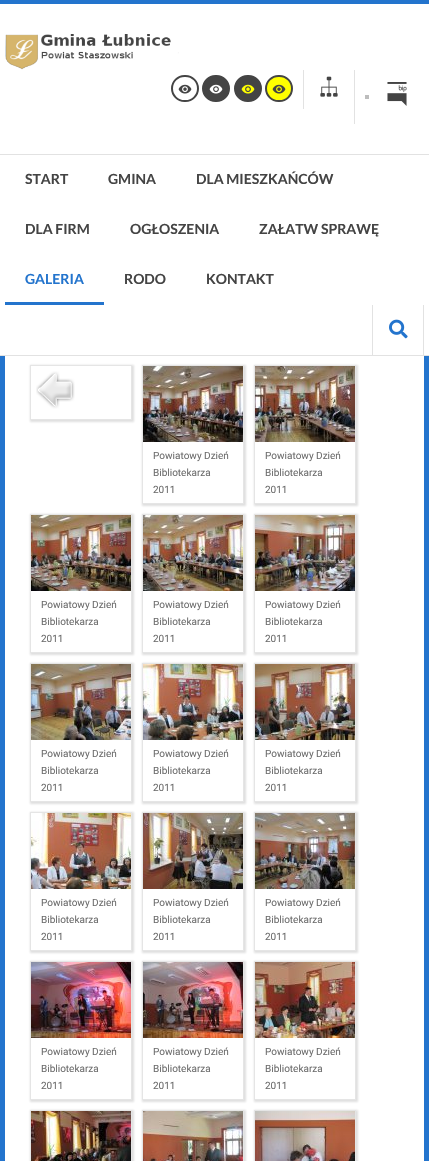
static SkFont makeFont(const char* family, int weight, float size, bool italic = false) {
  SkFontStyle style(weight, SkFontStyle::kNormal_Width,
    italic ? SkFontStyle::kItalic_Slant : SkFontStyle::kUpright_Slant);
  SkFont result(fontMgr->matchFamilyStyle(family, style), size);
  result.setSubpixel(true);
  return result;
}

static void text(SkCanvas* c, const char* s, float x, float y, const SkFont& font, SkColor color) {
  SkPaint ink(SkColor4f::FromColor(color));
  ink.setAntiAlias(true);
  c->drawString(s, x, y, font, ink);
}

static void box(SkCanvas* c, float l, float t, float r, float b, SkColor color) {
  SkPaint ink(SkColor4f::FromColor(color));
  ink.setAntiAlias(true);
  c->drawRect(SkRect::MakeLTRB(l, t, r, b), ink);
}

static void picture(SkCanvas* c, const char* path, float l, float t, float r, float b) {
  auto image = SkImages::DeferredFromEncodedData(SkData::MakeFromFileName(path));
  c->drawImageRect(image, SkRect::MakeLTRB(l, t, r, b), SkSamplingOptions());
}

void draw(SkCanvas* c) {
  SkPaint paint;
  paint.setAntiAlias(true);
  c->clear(0xff2374cd);
  box(c, 0, 355, 429, 356, 0xffe2e2e2);
  box(c, 0, 4, 429, 154, 0xffffffff);
  picture(c, "img_01.png", 5, 34, 179, 70);
  paint.setStyle(SkPaint::kStroke_Style);
  paint.setStrokeWidth(2);
  paint.setColor(0xff444444);
  c->drawRoundRect(SkRect::MakeLTRB(172, 76, 198, 101), 12.5f, 12.5f, paint);
  picture(c, "img_02.png", 178, 84, 192, 94);
  paint.setStyle(SkPaint::kFill_Style);
  c->drawRoundRect(SkRect::MakeLTRB(203, 76, 229, 101), 12.5f, 12.5f, paint);
  paint.setStyle(SkPaint::kStroke_Style);
  c->drawRoundRect(SkRect::MakeLTRB(203, 76, 229, 101), 12.5f, 12.5f, paint);
  picture(c, "img_03.png", 209, 84, 223, 94);
  paint.setStyle(SkPaint::kFill_Style);
  c->drawRoundRect(SkRect::MakeLTRB(235, 76, 261, 101), 12.5f, 12.5f, paint);
  paint.setStyle(SkPaint::kStroke_Style);
  c->drawRoundRect(SkRect::MakeLTRB(235, 76, 261, 101), 12.5f, 12.5f, paint);
  picture(c, "img_04.png", 241, 84, 255, 94);
  paint.setStyle(SkPaint::kFill_Style);
  paint.setColor(0xffffff00);
  c->drawRoundRect(SkRect::MakeLTRB(266, 76, 292, 101), 12.5f, 12.5f, paint);
  paint.setStyle(SkPaint::kStroke_Style);
  paint.setColor(0xff444444);
  c->drawRoundRect(SkRect::MakeLTRB(266, 76, 292, 101), 12.5f, 12.5f, paint);
  picture(c, "img_05.png", 272, 84, 286, 94);
  box(c, 303, 70, 304, 109, 0xffe2e2e2);
  picture(c, "img_06.png", 320, 76, 338, 97);
  box(c, 354, 70, 355, 124, 0xffe2e2e2);
  box(c, 365, 95, 369, 99, 0xffbdbdbd);
  picture(c, "img_07.png", 387, 82, 407, 106);
  box(c, 0, 155, 429, 355, 0xffffffff);
  box(c, 0, 154, 429, 155, 0xffe2e2e2);
  SkFont face1 = makeFont("Lato", 700, 14);
  text(c, "START", 25, 184, face1, 0xff444444);
  text(c, "GMINA", 108, 184, face1, 0xff444444);
  text(c, "DLA MIESZKAŃCÓW", 196, 184, face1, 0xff444444);
  text(c, "DLA FIRM", 25, 234, face1, 0xff444444);
  text(c, "OGŁOSZENIA", 130, 234, face1, 0xff444444);
  text(c, "ZAŁATW SPRAWĘ", 259, 234, face1, 0xff444444);
  box(c, 5, 302, 104, 305, 0xff2374cd);
  text(c, "GALERIA", 25, 284, face1, 0xff2374cd);
  text(c, "RODO", 124, 284, face1, 0xff444444);
  text(c, "KONTAKT", 206, 284, face1, 0xff444444);
  box(c, 423, 305, 424, 355, 0xffe2e2e2);
  box(c, 372, 305, 373, 355, 0xffe2e2e2);
  picture(c, "img_08.png", 389, 319, 408, 339);
  box(c, 5, 356, 424, 1161, 0xffffffff);
  c->save();
  c->clipPath(SkPathBuilder(SkPathFillType::kEvenOdd).moveTo(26, 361).lineTo(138, 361).lineTo(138, 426).lineTo(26, 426).close().moveTo(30, 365).lineTo(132, 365).lineTo(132, 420).lineTo(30, 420).close().detach(), true);
  paint.setStyle(SkPaint::kFill_Style);
  paint.setColor(0x80bebebe);
  paint.setMaskFilter(SkMaskFilter::MakeBlur(kNormal_SkBlurStyle, 1));
  c->drawRect(SkRect::MakeLTRB(30, 365, 134, 422), paint);
  paint.setMaskFilter(nullptr);
  c->restore();
  paint.setStyle(SkPaint::kStroke_Style);
  paint.setStrokeWidth(1);
  paint.setColor(0xffe5e5e5);
  c->drawRect(SkRect::MakeLTRB(30.5f, 365.5f, 131.5f, 419.5f), paint);
  picture(c, "img_09.png", 36, 371, 75, 409);
  c->save();
  c->clipPath(SkPathBuilder(SkPathFillType::kEvenOdd).moveTo(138, 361).lineTo(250, 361).lineTo(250, 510).lineTo(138, 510).close().moveTo(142, 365).lineTo(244, 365).lineTo(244, 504).lineTo(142, 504).close().detach(), true);
  paint.setStyle(SkPaint::kFill_Style);
  paint.setColor(0x80bebebe);
  paint.setMaskFilter(SkMaskFilter::MakeBlur(kNormal_SkBlurStyle, 1));
  c->drawRect(SkRect::MakeLTRB(142, 365, 246, 506), paint);
  paint.setMaskFilter(nullptr);
  c->restore();
  paint.setStyle(SkPaint::kStroke_Style);
  paint.setColor(0xffe5e5e5);
  c->drawRect(SkRect::MakeLTRB(142.5f, 365.5f, 243.5f, 503.5f), paint);
  picture(c, "img_10.png", 143, 366, 243, 442);
  SkFont face2 = makeFont("Roboto", 400, 10);
  text(c, "Powiatowy Dzień", 153, 459, face2, 0xff6d6d6d);
  text(c, "Bibliotekarza", 153, 476, face2, 0xff6d6d6d);
  text(c, "2011", 153, 493, face2, 0xff6d6d6d);
  c->save();
  c->clipPath(SkPathBuilder(SkPathFillType::kEvenOdd).moveTo(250, 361).lineTo(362, 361).lineTo(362, 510).lineTo(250, 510).close().moveTo(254, 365).lineTo(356, 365).lineTo(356, 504).lineTo(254, 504).close().detach(), true);
  paint.setStyle(SkPaint::kFill_Style);
  paint.setColor(0x80bebebe);
  paint.setMaskFilter(SkMaskFilter::MakeBlur(kNormal_SkBlurStyle, 1));
  c->drawRect(SkRect::MakeLTRB(254, 365, 358, 506), paint);
  paint.setMaskFilter(nullptr);
  c->restore();
  paint.setStyle(SkPaint::kStroke_Style);
  paint.setColor(0xffe5e5e5);
  c->drawRect(SkRect::MakeLTRB(254.5f, 365.5f, 355.5f, 503.5f), paint);
  picture(c, "img_11.png", 255, 366, 355, 442);
  text(c, "Powiatowy Dzień", 265, 459, face2, 0xff6d6d6d);
  text(c, "Bibliotekarza", 265, 476, face2, 0xff6d6d6d);
  text(c, "2011", 265, 493, face2, 0xff6d6d6d);
  c->save();
  c->clipPath(SkPathBuilder(SkPathFillType::kEvenOdd).moveTo(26, 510).lineTo(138, 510).lineTo(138, 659).lineTo(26, 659).close().moveTo(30, 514).lineTo(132, 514).lineTo(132, 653).lineTo(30, 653).close().detach(), true);
  paint.setStyle(SkPaint::kFill_Style);
  paint.setColor(0x80bebebe);
  paint.setMaskFilter(SkMaskFilter::MakeBlur(kNormal_SkBlurStyle, 1));
  c->drawRect(SkRect::MakeLTRB(30, 514, 134, 655), paint);
  paint.setMaskFilter(nullptr);
  c->restore();
  paint.setStyle(SkPaint::kStroke_Style);
  paint.setColor(0xffe5e5e5);
  c->drawRect(SkRect::MakeLTRB(30.5f, 514.5f, 131.5f, 652.5f), paint);
  picture(c, "img_12.png", 31, 515, 131, 591);
  text(c, "Powiatowy Dzień", 41, 608, face2, 0xff6d6d6d);
  text(c, "Bibliotekarza", 41, 625, face2, 0xff6d6d6d);
  text(c, "2011", 41, 642, face2, 0xff6d6d6d);
  c->save();
  c->clipPath(SkPathBuilder(SkPathFillType::kEvenOdd).moveTo(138, 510).lineTo(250, 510).lineTo(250, 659).lineTo(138, 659).close().moveTo(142, 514).lineTo(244, 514).lineTo(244, 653).lineTo(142, 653).close().detach(), true);
  paint.setStyle(SkPaint::kFill_Style);
  paint.setColor(0x80bebebe);
  paint.setMaskFilter(SkMaskFilter::MakeBlur(kNormal_SkBlurStyle, 1));
  c->drawRect(SkRect::MakeLTRB(142, 514, 246, 655), paint);
  paint.setMaskFilter(nullptr);
  c->restore();
  paint.setStyle(SkPaint::kStroke_Style);
  paint.setColor(0xffe5e5e5);
  c->drawRect(SkRect::MakeLTRB(142.5f, 514.5f, 243.5f, 652.5f), paint);
  picture(c, "img_13.png", 143, 515, 243, 591);
  text(c, "Powiatowy Dzień", 153, 608, face2, 0xff6d6d6d);
  text(c, "Bibliotekarza", 153, 625, face2, 0xff6d6d6d);
  text(c, "2011", 153, 642, face2, 0xff6d6d6d);
  c->save();
  c->clipPath(SkPathBuilder(SkPathFillType::kEvenOdd).moveTo(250, 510).lineTo(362, 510).lineTo(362, 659).lineTo(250, 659).close().moveTo(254, 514).lineTo(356, 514).lineTo(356, 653).lineTo(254, 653).close().detach(), true);
  paint.setStyle(SkPaint::kFill_Style);
  paint.setColor(0x80bebebe);
  paint.setMaskFilter(SkMaskFilter::MakeBlur(kNormal_SkBlurStyle, 1));
  c->drawRect(SkRect::MakeLTRB(254, 514, 358, 655), paint);
  paint.setMaskFilter(nullptr);
  c->restore();
  paint.setStyle(SkPaint::kStroke_Style);
  paint.setColor(0xffe5e5e5);
  c->drawRect(SkRect::MakeLTRB(254.5f, 514.5f, 355.5f, 652.5f), paint);
  picture(c, "img_14.png", 255, 515, 355, 591);
  text(c, "Powiatowy Dzień", 265, 608, face2, 0xff6d6d6d);
  text(c, "Bibliotekarza", 265, 625, face2, 0xff6d6d6d);
  text(c, "2011", 265, 642, face2, 0xff6d6d6d);
  c->save();
  c->clipPath(SkPathBuilder(SkPathFillType::kEvenOdd).moveTo(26, 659).lineTo(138, 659).lineTo(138, 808).lineTo(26, 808).close().moveTo(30, 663).lineTo(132, 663).lineTo(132, 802).lineTo(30, 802).close().detach(), true);
  paint.setStyle(SkPaint::kFill_Style);
  paint.setColor(0x80bebebe);
  paint.setMaskFilter(SkMaskFilter::MakeBlur(kNormal_SkBlurStyle, 1));
  c->drawRect(SkRect::MakeLTRB(30, 663, 134, 804), paint);
  paint.setMaskFilter(nullptr);
  c->restore();
  paint.setStyle(SkPaint::kStroke_Style);
  paint.setColor(0xffe5e5e5);
  c->drawRect(SkRect::MakeLTRB(30.5f, 663.5f, 131.5f, 801.5f), paint);
  picture(c, "img_15.png", 31, 664, 131, 740);
  text(c, "Powiatowy Dzień", 41, 757, face2, 0xff6d6d6d);
  text(c, "Bibliotekarza", 41, 774, face2, 0xff6d6d6d);
  text(c, "2011", 41, 791, face2, 0xff6d6d6d);
  c->save();
  c->clipPath(SkPathBuilder(SkPathFillType::kEvenOdd).moveTo(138, 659).lineTo(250, 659).lineTo(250, 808).lineTo(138, 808).close().moveTo(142, 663).lineTo(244, 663).lineTo(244, 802).lineTo(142, 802).close().detach(), true);
  paint.setStyle(SkPaint::kFill_Style);
  paint.setColor(0x80bebebe);
  paint.setMaskFilter(SkMaskFilter::MakeBlur(kNormal_SkBlurStyle, 1));
  c->drawRect(SkRect::MakeLTRB(142, 663, 246, 804), paint);
  paint.setMaskFilter(nullptr);
  c->restore();
  paint.setStyle(SkPaint::kStroke_Style);
  paint.setColor(0xffe5e5e5);
  c->drawRect(SkRect::MakeLTRB(142.5f, 663.5f, 243.5f, 801.5f), paint);
  picture(c, "img_16.png", 143, 664, 243, 740);
  text(c, "Powiatowy Dzień", 153, 757, face2, 0xff6d6d6d);
  text(c, "Bibliotekarza", 153, 774, face2, 0xff6d6d6d);
  text(c, "2011", 153, 791, face2, 0xff6d6d6d);
  c->save();
  c->clipPath(SkPathBuilder(SkPathFillType::kEvenOdd).moveTo(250, 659).lineTo(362, 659).lineTo(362, 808).lineTo(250, 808).close().moveTo(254, 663).lineTo(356, 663).lineTo(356, 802).lineTo(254, 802).close().detach(), true);
  paint.setStyle(SkPaint::kFill_Style);
  paint.setColor(0x80bebebe);
  paint.setMaskFilter(SkMaskFilter::MakeBlur(kNormal_SkBlurStyle, 1));
  c->drawRect(SkRect::MakeLTRB(254, 663, 358, 804), paint);
  paint.setMaskFilter(nullptr);
  c->restore();
  paint.setStyle(SkPaint::kStroke_Style);
  paint.setColor(0xffe5e5e5);
  c->drawRect(SkRect::MakeLTRB(254.5f, 663.5f, 355.5f, 801.5f), paint);
  picture(c, "img_17.png", 255, 664, 355, 740);
  text(c, "Powiatowy Dzień", 265, 757, face2, 0xff6d6d6d);
  text(c, "Bibliotekarza", 265, 774, face2, 0xff6d6d6d);
  text(c, "2011", 265, 791, face2, 0xff6d6d6d);
  c->save();
  c->clipPath(SkPathBuilder(SkPathFillType::kEvenOdd).moveTo(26, 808).lineTo(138, 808).lineTo(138, 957).lineTo(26, 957).close().moveTo(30, 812).lineTo(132, 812).lineTo(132, 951).lineTo(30, 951).close().detach(), true);
  paint.setStyle(SkPaint::kFill_Style);
  paint.setColor(0x80bebebe);
  paint.setMaskFilter(SkMaskFilter::MakeBlur(kNormal_SkBlurStyle, 1));
  c->drawRect(SkRect::MakeLTRB(30, 812, 134, 953), paint);
  paint.setMaskFilter(nullptr);
  c->restore();
  paint.setStyle(SkPaint::kStroke_Style);
  paint.setColor(0xffe5e5e5);
  c->drawRect(SkRect::MakeLTRB(30.5f, 812.5f, 131.5f, 950.5f), paint);
  picture(c, "img_18.png", 31, 813, 131, 889);
  text(c, "Powiatowy Dzień", 41, 906, face2, 0xff6d6d6d);
  text(c, "Bibliotekarza", 41, 923, face2, 0xff6d6d6d);
  text(c, "2011", 41, 940, face2, 0xff6d6d6d);
  c->save();
  c->clipPath(SkPathBuilder(SkPathFillType::kEvenOdd).moveTo(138, 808).lineTo(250, 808).lineTo(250, 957).lineTo(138, 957).close().moveTo(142, 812).lineTo(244, 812).lineTo(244, 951).lineTo(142, 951).close().detach(), true);
  paint.setStyle(SkPaint::kFill_Style);
  paint.setColor(0x80bebebe);
  paint.setMaskFilter(SkMaskFilter::MakeBlur(kNormal_SkBlurStyle, 1));
  c->drawRect(SkRect::MakeLTRB(142, 812, 246, 953), paint);
  paint.setMaskFilter(nullptr);
  c->restore();
  paint.setStyle(SkPaint::kStroke_Style);
  paint.setColor(0xffe5e5e5);
  c->drawRect(SkRect::MakeLTRB(142.5f, 812.5f, 243.5f, 950.5f), paint);
  picture(c, "img_19.png", 143, 813, 243, 889);
  text(c, "Powiatowy Dzień", 153, 906, face2, 0xff6d6d6d);
  text(c, "Bibliotekarza", 153, 923, face2, 0xff6d6d6d);
  text(c, "2011", 153, 940, face2, 0xff6d6d6d);
  c->save();
  c->clipPath(SkPathBuilder(SkPathFillType::kEvenOdd).moveTo(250, 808).lineTo(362, 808).lineTo(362, 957).lineTo(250, 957).close().moveTo(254, 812).lineTo(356, 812).lineTo(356, 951).lineTo(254, 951).close().detach(), true);
  paint.setStyle(SkPaint::kFill_Style);
  paint.setColor(0x80bebebe);
  paint.setMaskFilter(SkMaskFilter::MakeBlur(kNormal_SkBlurStyle, 1));
  c->drawRect(SkRect::MakeLTRB(254, 812, 358, 953), paint);
  paint.setMaskFilter(nullptr);
  c->restore();
  paint.setStyle(SkPaint::kStroke_Style);
  paint.setColor(0xffe5e5e5);
  c->drawRect(SkRect::MakeLTRB(254.5f, 812.5f, 355.5f, 950.5f), paint);
  picture(c, "img_20.png", 255, 813, 355, 889);
  text(c, "Powiatowy Dzień", 265, 906, face2, 0xff6d6d6d);
  text(c, "Bibliotekarza", 265, 923, face2, 0xff6d6d6d);
  text(c, "2011", 265, 940, face2, 0xff6d6d6d);
  c->save();
  c->clipPath(SkPathBuilder(SkPathFillType::kEvenOdd).moveTo(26, 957).lineTo(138, 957).lineTo(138, 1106).lineTo(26, 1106).close().moveTo(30, 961).lineTo(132, 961).lineTo(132, 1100).lineTo(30, 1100).close().detach(), true);
  paint.setStyle(SkPaint::kFill_Style);
  paint.setColor(0x80bebebe);
  paint.setMaskFilter(SkMaskFilter::MakeBlur(kNormal_SkBlurStyle, 1));
  c->drawRect(SkRect::MakeLTRB(30, 961, 134, 1102), paint);
  paint.setMaskFilter(nullptr);
  c->restore();
  paint.setStyle(SkPaint::kStroke_Style);
  paint.setColor(0xffe5e5e5);
  c->drawRect(SkRect::MakeLTRB(30.5f, 961.5f, 131.5f, 1099.5f), paint);
  picture(c, "img_21.png", 31, 962, 131, 1038);
  text(c, "Powiatowy Dzień", 41, 1055, face2, 0xff6d6d6d);
  text(c, "Bibliotekarza", 41, 1072, face2, 0xff6d6d6d);
  text(c, "2011", 41, 1089, face2, 0xff6d6d6d);
  c->save();
  c->clipPath(SkPathBuilder(SkPathFillType::kEvenOdd).moveTo(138, 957).lineTo(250, 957).lineTo(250, 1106).lineTo(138, 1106).close().moveTo(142, 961).lineTo(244, 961).lineTo(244, 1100).lineTo(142, 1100).close().detach(), true);
  paint.setStyle(SkPaint::kFill_Style);
  paint.setColor(0x80bebebe);
  paint.setMaskFilter(SkMaskFilter::MakeBlur(kNormal_SkBlurStyle, 1));
  c->drawRect(SkRect::MakeLTRB(142, 961, 246, 1102), paint);
  paint.setMaskFilter(nullptr);
  c->restore();
  paint.setStyle(SkPaint::kStroke_Style);
  paint.setColor(0xffe5e5e5);
  c->drawRect(SkRect::MakeLTRB(142.5f, 961.5f, 243.5f, 1099.5f), paint);
  picture(c, "img_22.png", 143, 962, 243, 1038);
  text(c, "Powiatowy Dzień", 153, 1055, face2, 0xff6d6d6d);
  text(c, "Bibliotekarza", 153, 1072, face2, 0xff6d6d6d);
  text(c, "2011", 153, 1089, face2, 0xff6d6d6d);
  c->save();
  c->clipPath(SkPathBuilder(SkPathFillType::kEvenOdd).moveTo(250, 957).lineTo(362, 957).lineTo(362, 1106).lineTo(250, 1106).close().moveTo(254, 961).lineTo(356, 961).lineTo(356, 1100).lineTo(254, 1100).close().detach(), true);
  paint.setStyle(SkPaint::kFill_Style);
  paint.setColor(0x80bebebe);
  paint.setMaskFilter(SkMaskFilter::MakeBlur(kNormal_SkBlurStyle, 1));
  c->drawRect(SkRect::MakeLTRB(254, 961, 358, 1102), paint);
  paint.setMaskFilter(nullptr);
  c->restore();
  paint.setStyle(SkPaint::kStroke_Style);
  paint.setColor(0xffe5e5e5);
  c->drawRect(SkRect::MakeLTRB(254.5f, 961.5f, 355.5f, 1099.5f), paint);
  picture(c, "img_23.png", 255, 962, 355, 1038);
  text(c, "Powiatowy Dzień", 265, 1055, face2, 0xff6d6d6d);
  text(c, "Bibliotekarza", 265, 1072, face2, 0xff6d6d6d);
  text(c, "2011", 265, 1089, face2, 0xff6d6d6d);
  paint.setStyle(SkPaint::kFill_Style);
  paint.setColor(0x80bebebe);
  paint.setMaskFilter(SkMaskFilter::MakeBlur(kNormal_SkBlurStyle, 1));
  c->drawRect(SkRect::MakeLTRB(30, 1110, 134, 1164), paint);
  paint.setMaskFilter(nullptr);
  paint.setStyle(SkPaint::kStroke_Style);
  paint.setColor(0xffe5e5e5);
  c->drawRect(SkRect::MakeLTRB(30.5f, 1110.5f, 131.5f, 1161.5f), paint);
  picture(c, "img_24.png", 31, 1111, 131, 1161);
  paint.setStyle(SkPaint::kFill_Style);
  paint.setColor(0x80bebebe);
  paint.setMaskFilter(SkMaskFilter::MakeBlur(kNormal_SkBlurStyle, 1));
  c->drawRect(SkRect::MakeLTRB(142, 1110, 246, 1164), paint);
  paint.setMaskFilter(nullptr);
  paint.setStyle(SkPaint::kStroke_Style);
  paint.setColor(0xffe5e5e5);
  c->drawRect(SkRect::MakeLTRB(142.5f, 1110.5f, 243.5f, 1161.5f), paint);
  picture(c, "img_25.png", 143, 1111, 243, 1161);
  paint.setStyle(SkPaint::kFill_Style);
  paint.setColor(0x80bebebe);
  paint.setMaskFilter(SkMaskFilter::MakeBlur(kNormal_SkBlurStyle, 1));
  c->drawRect(SkRect::MakeLTRB(254, 1110, 358, 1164), paint);
  paint.setMaskFilter(nullptr);
  paint.setStyle(SkPaint::kStroke_Style);
  paint.setColor(0xffe5e5e5);
  c->drawRect(SkRect::MakeLTRB(254.5f, 1110.5f, 355.5f, 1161.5f), paint);
  picture(c, "img_26.png", 255, 1111, 355, 1161);
}
